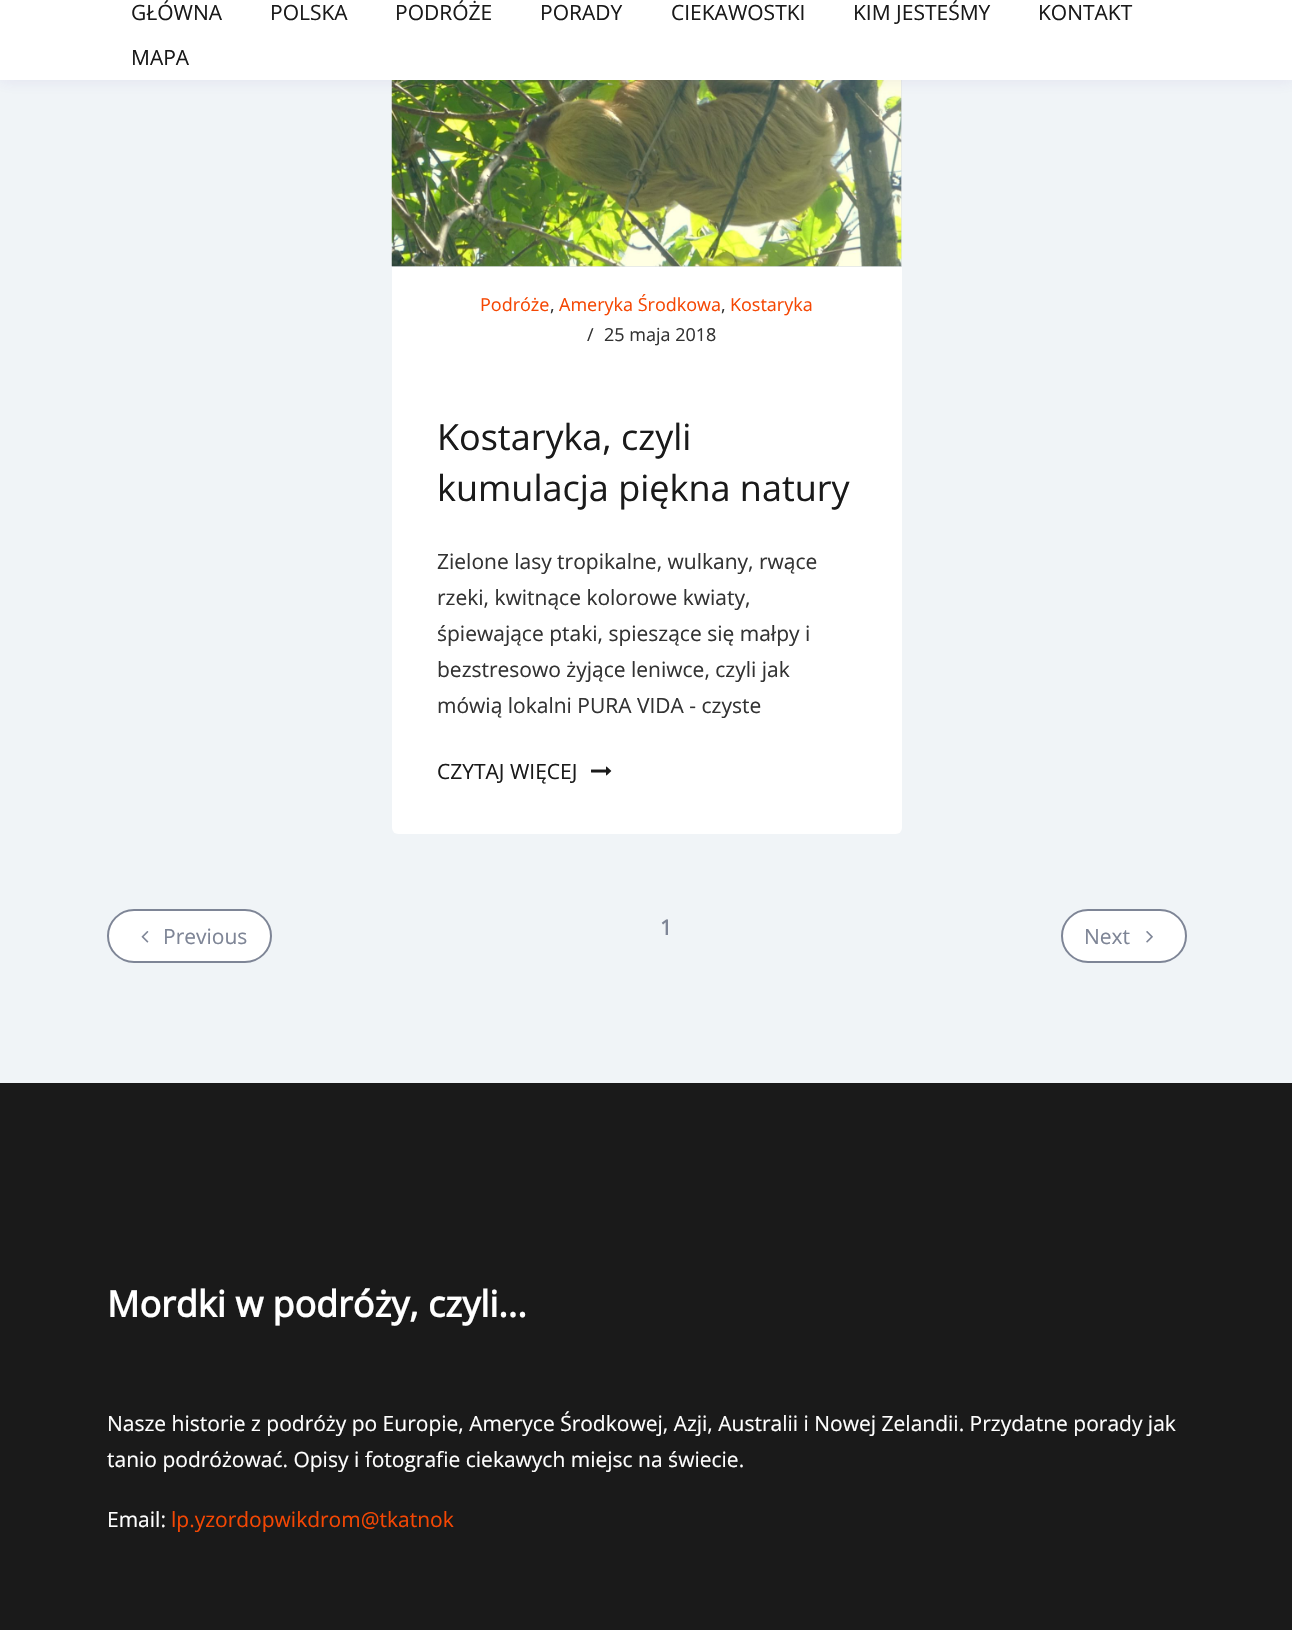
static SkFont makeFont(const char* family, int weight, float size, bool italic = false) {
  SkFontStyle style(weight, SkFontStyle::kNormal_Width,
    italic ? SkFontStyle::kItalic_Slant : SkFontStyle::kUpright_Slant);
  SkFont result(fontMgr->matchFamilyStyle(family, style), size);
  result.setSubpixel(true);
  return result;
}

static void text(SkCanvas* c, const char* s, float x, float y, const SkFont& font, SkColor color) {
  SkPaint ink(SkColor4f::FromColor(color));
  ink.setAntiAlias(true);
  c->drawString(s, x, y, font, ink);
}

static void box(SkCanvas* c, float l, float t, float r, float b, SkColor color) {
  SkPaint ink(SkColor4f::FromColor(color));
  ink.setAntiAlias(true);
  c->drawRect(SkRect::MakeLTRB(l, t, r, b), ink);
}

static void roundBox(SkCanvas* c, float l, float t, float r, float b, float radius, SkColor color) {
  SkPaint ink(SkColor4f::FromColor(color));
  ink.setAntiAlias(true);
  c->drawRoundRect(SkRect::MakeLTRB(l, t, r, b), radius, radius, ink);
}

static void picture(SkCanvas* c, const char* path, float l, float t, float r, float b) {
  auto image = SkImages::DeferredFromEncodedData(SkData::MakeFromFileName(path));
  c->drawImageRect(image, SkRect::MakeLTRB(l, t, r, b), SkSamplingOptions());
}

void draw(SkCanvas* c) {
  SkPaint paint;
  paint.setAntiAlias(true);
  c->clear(0xfff0f4f7);
  roundBox(c, 392, -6, 902, 834, 6, 0xffffffff);
  box(c, 392, 80, 902, 267, 0xffe0e4e8);
  picture(c, "img_01.png", 391, 80, 902, 267);
  paint.setColor(0x1a513dae);
  paint.setMaskFilter(SkMaskFilter::MakeBlur(kNormal_SkBlurStyle, 7.5f));
  c->drawRect(SkRect::MakeLTRB(0, -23, 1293, 80), paint);
  paint.setMaskFilter(nullptr);
  box(c, 0, 0, 1292, 80, 0xffffffff);
  SkFont face1 = makeFont("Open Sans", 400, 21);
  text(c, "GŁÓWNA", 131, 20, face1, 0xff1a1a1a);
  text(c, "POLSKA", 270, 20, face1, 0xff1a1a1a);
  text(c, "PODRÓŻE", 395, 20, face1, 0xff1a1a1a);
  text(c, "PORADY", 540, 20, face1, 0xff1a1a1a);
  text(c, "CIEKAWOSTKI", 671, 20, face1, 0xff1a1a1a);
  text(c, "KIM JESTEŚMY", 853, 20, face1, 0xff1a1a1a);
  text(c, "KONTAKT", 1038, 20, face1, 0xff1a1a1a);
  text(c, "MAPA", 131, 65, face1, 0xff1a1a1a);
  SkFont face2 = makeFont("Open Sans", 400, 18);
  text(c, "Podróże", 480, 311, face2, 0xfff54703);
  text(c, ",", 550, 311, face2, 0xff333333);
  text(c, "Ameryka Środkowa", 559, 311, face2, 0xfff54703);
  text(c, ",", 721, 311, face2, 0xff333333);
  text(c, "Kostaryka", 730, 311, face2, 0xfff54703);
  text(c, "/", 587, 341, face2, 0xff333333);
  text(c, "25 maja 2018", 604, 341, face2, 0xff333333);
  SkFont face3 = makeFont("Open Sans", 400, 36);
  text(c, "Kostaryka, czyli", 437, 450, face3, 0xff1a1a1a);
  text(c, "kumulacja piękna natury", 437, 501, face3, 0xff1a1a1a);
  text(c, "Zielone lasy tropikalne, wulkany, rwące", 437, 569, face1, 0xff333333);
  text(c, "rzeki, kwitnące kolorowe kwiaty,", 437, 605, face1, 0xff333333);
  text(c, "śpiewające ptaki, spieszące się małpy i", 437, 641, face1, 0xff333333);
  text(c, "bezstresowo żyjące leniwce, czyli jak", 437, 677, face1, 0xff333333);
  text(c, "mówią lokalni PURA VIDA - czyste", 437, 713, face1, 0xff333333);
  text(c, "CZYTAJ WIĘCEJ", 437, 779, face1, 0xff1a1a1a);
  picture(c, "img_02.png", 591, 766, 612, 776);
  paint.setColor(0xffffffff);
  c->drawRoundRect(SkRect::MakeLTRB(108, 910, 271, 962), 26, 26, paint);
  paint.setStyle(SkPaint::kStroke_Style);
  paint.setStrokeWidth(2);
  paint.setColor(0xff7e8596);
  c->drawRoundRect(SkRect::MakeLTRB(108, 910, 271, 962), 26, 26, paint);
  picture(c, "img_03.png", 141, 931, 149, 943);
  text(c, "Previous", 163, 944, face1, 0xff7e8596);
  SkFont face4 = makeFont("Open Sans", 700, 21);
  text(c, "1", 660, 935, face4, 0xff7e8596);
  paint.setStyle(SkPaint::kFill_Style);
  paint.setColor(0xffffffff);
  c->drawRoundRect(SkRect::MakeLTRB(1062, 910, 1186, 962), 26, 26, paint);
  paint.setStyle(SkPaint::kStroke_Style);
  paint.setColor(0xff7e8596);
  c->drawRoundRect(SkRect::MakeLTRB(1062, 910, 1186, 962), 26, 26, paint);
  text(c, "Next", 1084, 944, face1, 0xff7e8596);
  picture(c, "img_04.png", 1146, 931, 1153, 943);
  box(c, 0, 1083, 1292, 1630, 0xff1a1a1a);
  SkFont face5 = makeFont("Open Sans", 700, 36);
  text(c, "Mordki w podróży, czyli...", 107, 1317, face5, 0xffffffff);
  text(c, "Nasze historie z podróży po Europie, Ameryce Środkowej, Azji, Australii i Nowej Zelandii. Przydatne porady jak", 107, 1431, face1, 0xffffffff);
  text(c, "tanio podróżować. Opisy i fotografie ciekawych miejsc na świecie.", 107, 1467, face1, 0xffffffff);
  text(c, "Email:", 107, 1527, face1, 0xffffffff);
  text(c, "lp.yzordopwikdrom@tkatnok", 171, 1527, face1, 0xfff54703);
}
